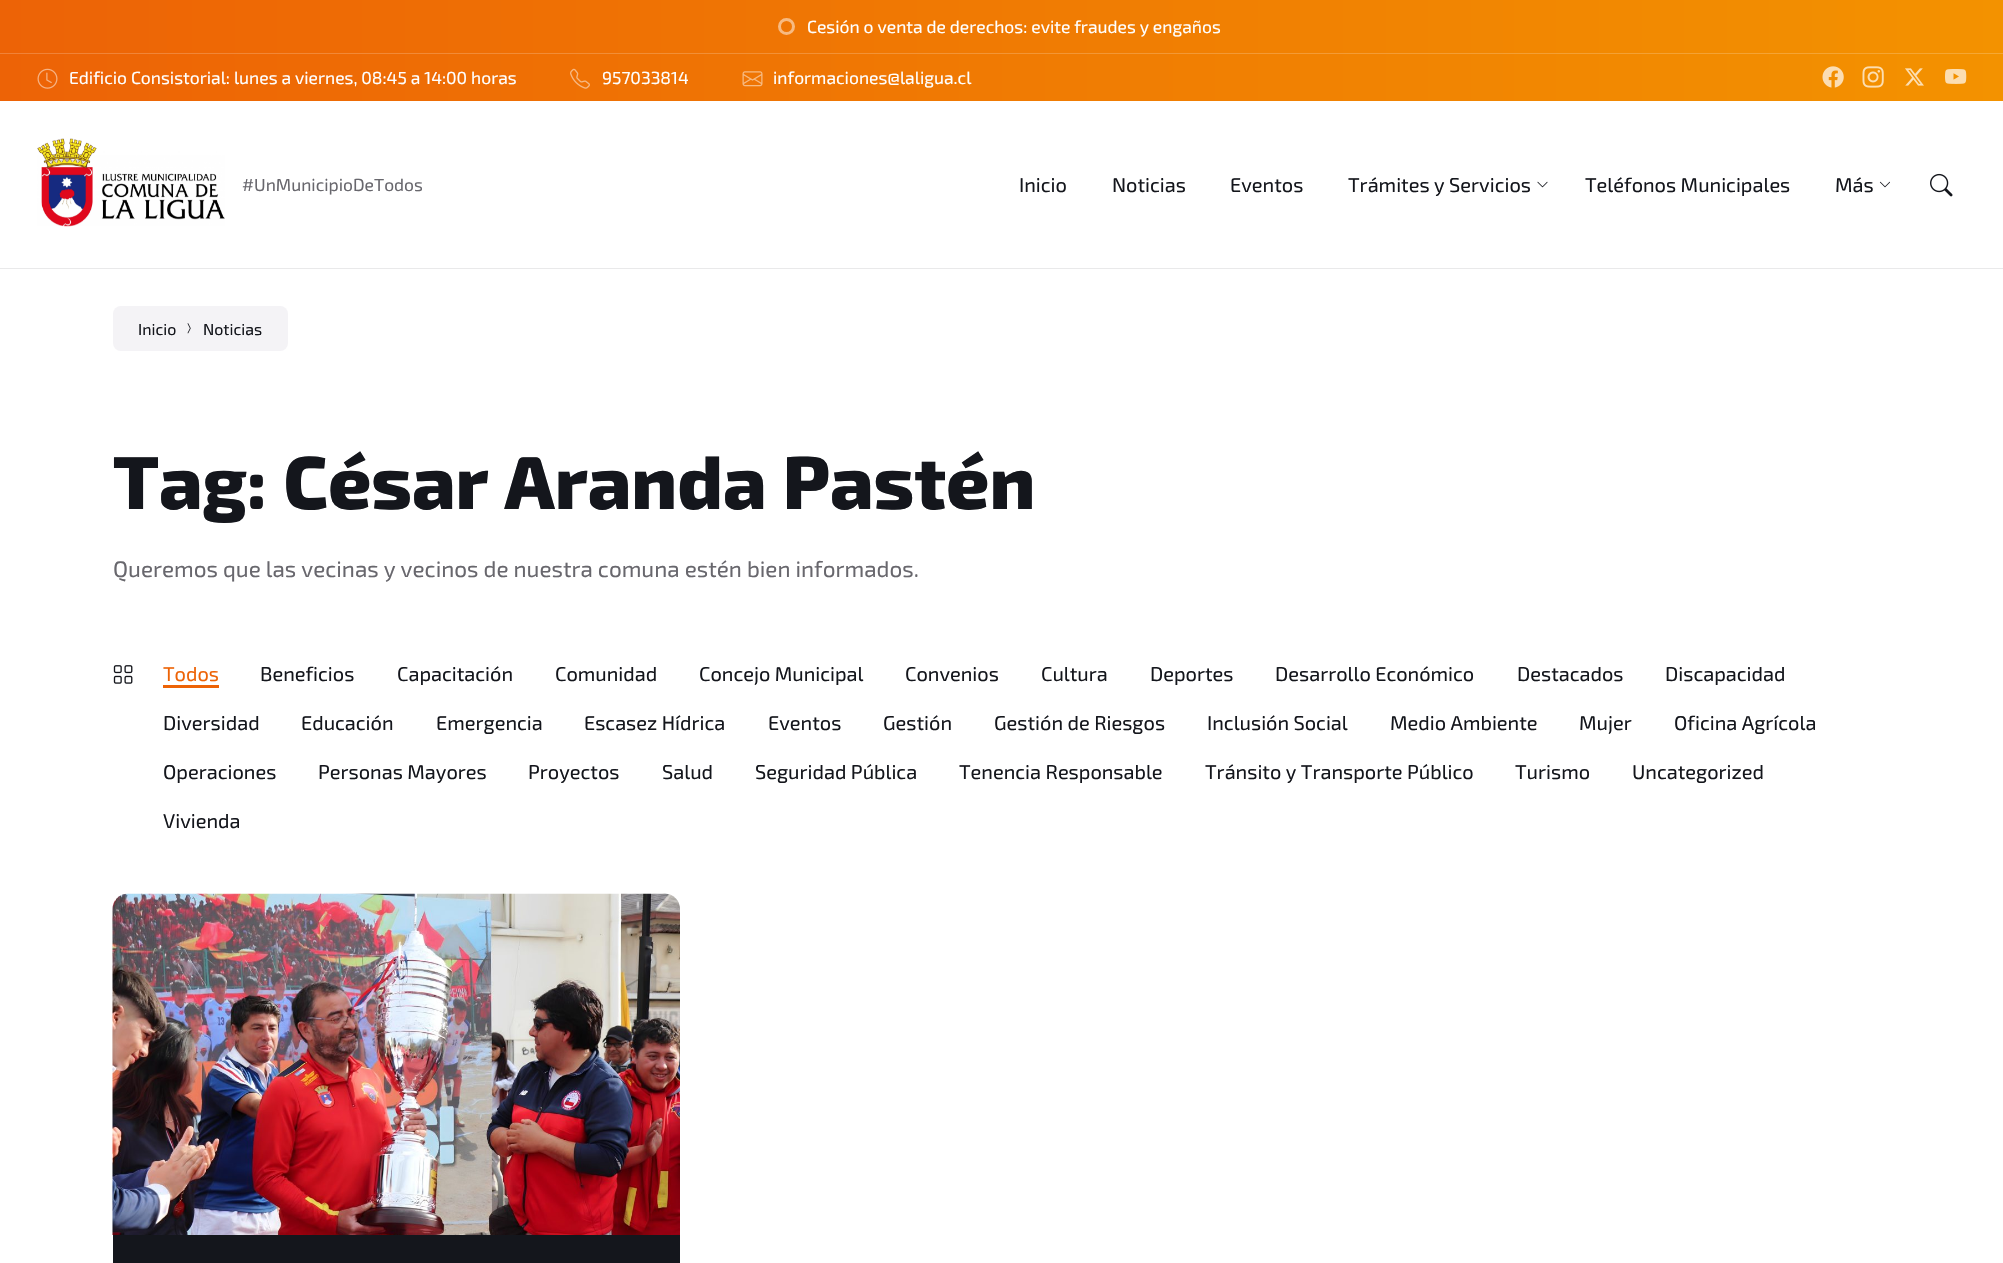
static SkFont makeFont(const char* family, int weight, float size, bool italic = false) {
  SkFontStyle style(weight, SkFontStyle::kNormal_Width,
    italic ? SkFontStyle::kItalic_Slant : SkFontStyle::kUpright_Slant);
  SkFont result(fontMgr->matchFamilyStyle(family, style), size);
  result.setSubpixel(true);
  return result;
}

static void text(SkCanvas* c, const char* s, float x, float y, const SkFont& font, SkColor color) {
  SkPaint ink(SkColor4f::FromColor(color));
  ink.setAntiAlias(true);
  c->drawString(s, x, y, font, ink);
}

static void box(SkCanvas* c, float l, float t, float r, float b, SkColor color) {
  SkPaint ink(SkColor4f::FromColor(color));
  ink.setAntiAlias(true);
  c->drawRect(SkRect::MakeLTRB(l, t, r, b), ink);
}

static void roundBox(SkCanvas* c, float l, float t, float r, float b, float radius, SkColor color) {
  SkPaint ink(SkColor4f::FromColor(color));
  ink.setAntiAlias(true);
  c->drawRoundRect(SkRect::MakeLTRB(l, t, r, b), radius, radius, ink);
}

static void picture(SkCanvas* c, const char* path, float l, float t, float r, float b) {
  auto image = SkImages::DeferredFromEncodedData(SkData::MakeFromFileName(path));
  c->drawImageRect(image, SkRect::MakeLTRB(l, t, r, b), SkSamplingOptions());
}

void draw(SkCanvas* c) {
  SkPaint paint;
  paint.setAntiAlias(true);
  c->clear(0xffffffff);
  box(c, 0, 268, 2003, 269, 0xffe9e9ea);
  {
    const SkColor colors[] = {0xffed6306, 0xfff39200};
    const float stops[] = {0, 1};
    const SkPoint ends[] = {{0, 3.1f}, {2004, 3.1f}};
    paint.setShader(SkGradientShader::MakeLinear(ends, colors, stops, 2, SkTileMode::kClamp));
    paint.setAlpha(255);
  }
  c->drawRect(SkRect::MakeLTRB(0, 0, 2003, 6), paint);
  {
    const SkColor colors[] = {0xffed6306, 0xfff39200};
    const float stops[] = {0, 1};
    const SkPoint ends[] = {{0, 30}, {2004, 30}};
    paint.setShader(SkGradientShader::MakeLinear(ends, colors, stops, 2, SkTileMode::kClamp));
    paint.setAlpha(255);
  }
  c->drawRect(SkRect::MakeLTRB(0, 6, 2003, 53), paint);
  {
    const SkColor colors[] = {0xfff18238, 0xfff5a833};
    const float stops[] = {0, 1};
    const SkPoint ends[] = {{0, 30}, {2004, 30}};
    paint.setShader(SkGradientShader::MakeLinear(ends, colors, stops, 2, SkTileMode::kClamp));
    paint.setAlpha(255);
  }
  c->drawRect(SkRect::MakeLTRB(0, 53, 2003, 54), paint);
  paint.setStyle(SkPaint::kStroke_Style);
  paint.setStrokeWidth(3);
  paint.setShader(nullptr);
  paint.setColor(0xfff7ba82);
  c->drawCircle(786.5f, 26.5f, 7, paint);
  SkFont face1 = makeFont("Exo 2", 400, 17.5f);
  text(c, "Cesión o venta de derechos: evite fraudes y engaños", 807, 33, face1, 0xffffffff);
  paint.setStyle(SkPaint::kFill_Style);
  {
    const SkColor colors[] = {0xffed6306, 0xfff39200};
    const float stops[] = {0, 1};
    const SkPoint ends[] = {{0, 78}, {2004, 77}};
    paint.setShader(SkGradientShader::MakeLinear(ends, colors, stops, 2, SkTileMode::kClamp));
    paint.setAlpha(255);
  }
  c->drawRect(SkRect::MakeLTRB(0, 54, 2003, 101), paint);
  picture(c, "img_01.png", 37, 68, 58, 89);
  text(c, "Edificio Consistorial: lunes a viernes, 08:45 a 14:00 horas", 69, 84, face1, 0xffffffff);
  picture(c, "img_02.png", 570, 68, 590, 89);
  text(c, "957033814", 602, 84, face1, 0xffffffff);
  picture(c, "img_03.png", 742, 71, 763, 87);
  text(c, "informaciones@laligua.cl", 773, 84, face1, 0xffffffff);
  picture(c, "img_04.png", 1822, 66, 1844, 88);
  picture(c, "img_05.png", 1862, 66, 1884, 88);
  picture(c, "img_06.png", 1905, 68, 1924, 86);
  picture(c, "img_07.png", 1945, 69, 1967, 84);
  picture(c, "img_08.png", 37, 138, 225, 227);
  text(c, "#UnMunicipioDeTodos", 242, 191, face1, 0xff68676d);
  SkFont face2 = makeFont("Exo 2", 400, 20);
  text(c, "Inicio", 1019, 192, face2, 0xff14161c);
  text(c, "Noticias", 1112, 192, face2, 0xff14161c);
  text(c, "Eventos", 1230, 192, face2, 0xff14161c);
  text(c, "Trámites y Servicios", 1348, 192, face2, 0xff14161c);
  picture(c, "img_09.png", 1537, 181, 1548, 188);
  text(c, "Teléfonos Municipales", 1585, 192, face2, 0xff14161c);
  text(c, "Más", 1835, 192, face2, 0xff14161c);
  picture(c, "img_10.png", 1879, 181, 1890, 188);
  picture(c, "img_11.png", 1930, 173, 1953, 197);
  roundBox(c, 113, 306, 288, 351, 8, 0xfff4f3f6);
  SkFont face3 = makeFont("Exo 2", 400, 16);
  text(c, "Inicio", 138, 335, face3, 0xff14161c);
  picture(c, "img_12.png", 187, 323, 191, 334);
  text(c, "Noticias", 203, 335, face3, 0xff14161c);
  SkFont face4 = makeFont("Exo 2", 800, 75);
  text(c, "Tag: César Aranda Pastén", 113, 509, face4, 0xff14161c);
  SkFont face5 = makeFont("Exo 2", 400, 22.5f);
  text(c, "Queremos que las vecinas y vecinos de nuestra comuna estén bien informados.", 113, 577, face5, 0xff68676d);
  picture(c, "img_13.png", 113, 665, 133, 684);
  text(c, "Todos", 163, 681, face2, 0xffed6306);
  paint.setShader(nullptr);
  paint.setColor(0xffed6306);
  c->drawPath(SkPathBuilder().moveTo(163, 685).lineTo(163, 688).lineTo(219, 688).lineTo(219, 664).lineTo(219, 685).close().detach(), paint);
  text(c, "Beneficios", 260, 681, face2, 0xff14161c);
  text(c, "Capacitación", 397, 681, face2, 0xff14161c);
  text(c, "Comunidad", 555, 681, face2, 0xff14161c);
  text(c, "Concejo Municipal", 699, 681, face2, 0xff14161c);
  text(c, "Convenios", 905, 681, face2, 0xff14161c);
  text(c, "Cultura", 1041, 681, face2, 0xff14161c);
  text(c, "Deportes", 1150, 681, face2, 0xff14161c);
  text(c, "Desarrollo Económico", 1275, 681, face2, 0xff14161c);
  text(c, "Destacados", 1517, 681, face2, 0xff14161c);
  text(c, "Discapacidad", 1665, 681, face2, 0xff14161c);
  text(c, "Diversidad", 163, 730, face2, 0xff14161c);
  text(c, "Educación", 301, 730, face2, 0xff14161c);
  text(c, "Emergencia", 436, 730, face2, 0xff14161c);
  text(c, "Escasez Hídrica", 584, 730, face2, 0xff14161c);
  text(c, "Eventos", 768, 730, face2, 0xff14161c);
  text(c, "Gestión", 883, 730, face2, 0xff14161c);
  text(c, "Gestión de Riesgos", 994, 730, face2, 0xff14161c);
  text(c, "Inclusión Social", 1207, 730, face2, 0xff14161c);
  text(c, "Medio Ambiente", 1390, 730, face2, 0xff14161c);
  text(c, "Mujer", 1579, 730, face2, 0xff14161c);
  text(c, "Oficina Agrícola", 1674, 730, face2, 0xff14161c);
  text(c, "Operaciones", 163, 779, face2, 0xff14161c);
  text(c, "Personas Mayores", 318, 779, face2, 0xff14161c);
  text(c, "Proyectos", 528, 779, face2, 0xff14161c);
  text(c, "Salud", 662, 779, face2, 0xff14161c);
  text(c, "Seguridad Pública", 755, 779, face2, 0xff14161c);
  text(c, "Tenencia Responsable", 959, 779, face2, 0xff14161c);
  text(c, "Tránsito y Transporte Público", 1205, 779, face2, 0xff14161c);
  text(c, "Turismo", 1515, 779, face2, 0xff14161c);
  text(c, "Uncategorized", 1632, 779, face2, 0xff14161c);
  text(c, "Vivienda", 163, 828, face2, 0xff14161c);
  picture(c, "img_14.png", 112, 893, 680, 1235);
  box(c, 113, 1235, 680, 1263, 0xff14161c);
}
